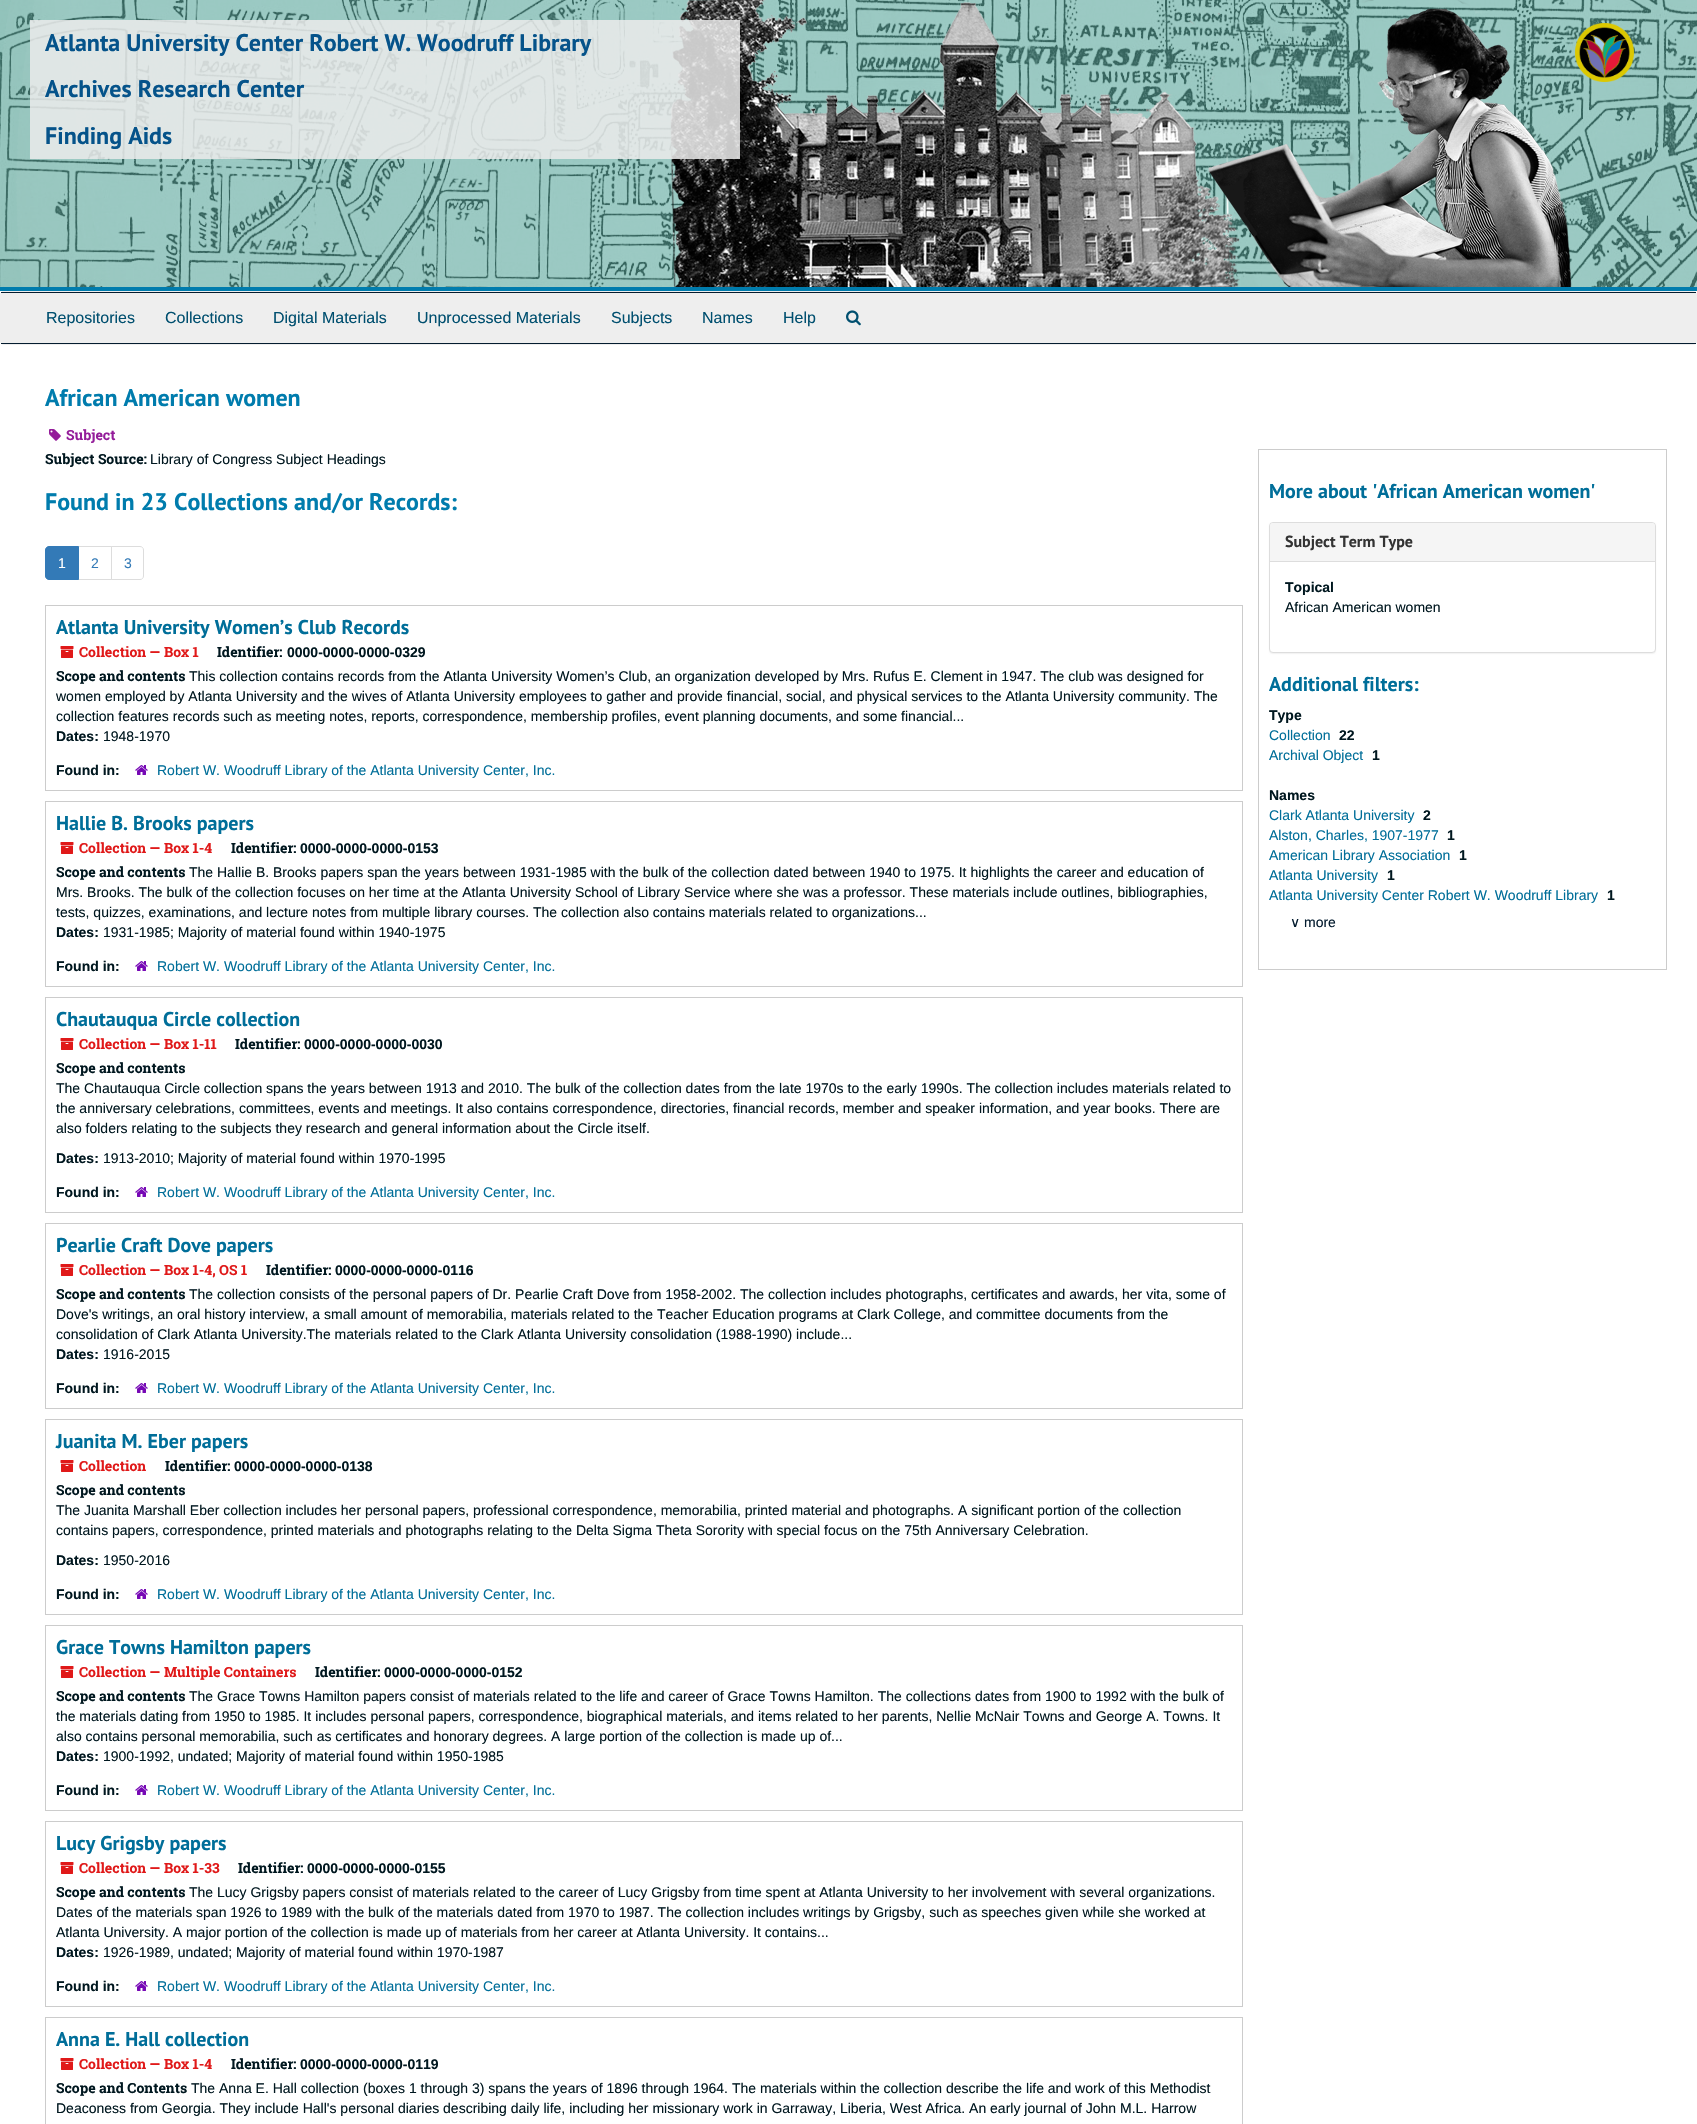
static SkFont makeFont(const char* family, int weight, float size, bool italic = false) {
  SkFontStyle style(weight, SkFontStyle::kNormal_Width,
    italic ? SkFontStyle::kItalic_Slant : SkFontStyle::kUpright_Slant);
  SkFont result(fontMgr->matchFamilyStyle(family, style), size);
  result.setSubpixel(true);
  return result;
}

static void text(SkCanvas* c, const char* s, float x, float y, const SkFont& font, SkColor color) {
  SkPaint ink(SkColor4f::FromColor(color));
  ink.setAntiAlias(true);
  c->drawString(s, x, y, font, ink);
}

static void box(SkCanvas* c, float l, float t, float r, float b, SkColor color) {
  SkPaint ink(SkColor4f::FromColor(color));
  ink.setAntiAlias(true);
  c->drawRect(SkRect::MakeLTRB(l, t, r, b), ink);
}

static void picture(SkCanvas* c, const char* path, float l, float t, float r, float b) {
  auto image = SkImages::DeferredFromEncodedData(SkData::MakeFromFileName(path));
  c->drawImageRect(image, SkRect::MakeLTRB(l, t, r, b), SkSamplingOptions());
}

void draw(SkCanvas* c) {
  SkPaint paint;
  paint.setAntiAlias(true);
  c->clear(0xffffffff);
  picture(c, "img_01.png", 0, 0, 1697, 287);
  box(c, 0, 287, 1697, 291, 0xff007cad);
  box(c, 30, 20, 740, 159, 0xd9ebebeb);
  SkFont face1 = makeFont("PT Sans", 700, 24);
  text(c, "Atlanta University Center Robert W. Woodruff Library", 45, 51, face1, 0xff05538a);
  text(c, "Archives Research Center", 45, 97, face1, 0xff05538a);
  text(c, "Finding Aids", 45, 144, face1, 0xff05538a);
  picture(c, "img_02.png", 1575, 23, 1634, 82);
  paint.setColor(0xffeeeeee);
  c->drawRoundRect(SkRect::MakeLTRB(0.5f, 291.5f, 1696.5f, 344.5f), 3.5f, 3.5f, paint);
  paint.setStyle(SkPaint::kStroke_Style);
  paint.setStrokeWidth(1);
  c->drawRoundRect(SkRect::MakeLTRB(0.5f, 291.5f, 1696.5f, 344.5f), 3.5f, 3.5f, paint);
  box(c, 1, 292, 1696, 293, 0xff041c2f);
  box(c, 1, 343, 1696, 344, 0xff041c2f);
  SkFont face2 = makeFont("Liberation Sans", 400, 16);
  text(c, "Repositories", 46, 323, face2, 0xff004f6f);
  text(c, "Collections", 165, 323, face2, 0xff004f6f);
  text(c, "Digital Materials", 273, 323, face2, 0xff004f6f);
  text(c, "Unprocessed Materials", 417, 323, face2, 0xff004f6f);
  text(c, "Subjects", 611, 323, face2, 0xff004f6f);
  text(c, "Names", 702, 323, face2, 0xff004f6f);
  text(c, "Help", 783, 323, face2, 0xff004f6f);
  picture(c, "img_03.png", 846, 310, 861, 326);
  text(c, "African American women", 45, 406, face1, 0xff007cad);
  picture(c, "img_04.png", 49, 429, 61, 441);
  SkFont face3 = makeFont("Roboto Slab", 700, 14);
  text(c, "Subject", 66, 440, face3, 0xff941c9a);
  text(c, "Subject Source:", 45, 464, face3, 0xff00171f);
  SkFont face4 = makeFont("Liberation Sans", 400, 14);
  text(c, "Library of Congress Subject Headings", 150, 464, face4, 0xff00171f);
  text(c, "Found in 23 Collections and/or Records:", 45, 510, face1, 0xff007cad);
  paint.setColor(0xffdddddd);
  c->drawRect(SkRect::MakeLTRB(78.5f, 546.5f, 111.5f, 579.5f), paint);
  paint.setStyle(SkPaint::kFill_Style);
  paint.setColor(0xff337ab7);
  c->drawPath(SkPathBuilder().moveTo(49, 546.5f).lineTo(78.5f, 546.5f).lineTo(78.5f, 579.5f).lineTo(49, 579.5f).cubicTo(47, 579.5f, 45.5f, 578, 45.5f, 576).lineTo(45.5f, 550).cubicTo(45.5f, 548, 47, 546.5f, 49, 546.5f).close().detach(), paint);
  paint.setStyle(SkPaint::kStroke_Style);
  c->drawPath(SkPathBuilder().moveTo(49, 546.5f).lineTo(78.5f, 546.5f).lineTo(78.5f, 579.5f).lineTo(49, 579.5f).cubicTo(47, 579.5f, 45.5f, 578, 45.5f, 576).lineTo(45.5f, 550).cubicTo(45.5f, 548, 47, 546.5f, 49, 546.5f).close().detach(), paint);
  text(c, "1", 58, 568, face4, 0xffffffff);
  text(c, "2", 91, 568, face4, 0xff337ab7);
  paint.setStyle(SkPaint::kFill_Style);
  paint.setColor(0xffffffff);
  c->drawPath(SkPathBuilder().moveTo(111.5f, 546.5f).lineTo(140, 546.5f).cubicTo(142, 546.5f, 143.5f, 548, 143.5f, 550).lineTo(143.5f, 576).cubicTo(143.5f, 578, 142, 579.5f, 140, 579.5f).lineTo(111.5f, 579.5f).close().detach(), paint);
  paint.setStyle(SkPaint::kStroke_Style);
  paint.setColor(0xffdddddd);
  c->drawPath(SkPathBuilder().moveTo(111.5f, 546.5f).lineTo(140, 546.5f).cubicTo(142, 546.5f, 143.5f, 548, 143.5f, 550).lineTo(143.5f, 576).cubicTo(143.5f, 578, 142, 579.5f, 140, 579.5f).lineTo(111.5f, 579.5f).close().detach(), paint);
  text(c, "3", 124, 568, face4, 0xff337ab7);
  paint.setColor(0xffcccccc);
  c->drawRect(SkRect::MakeLTRB(45.5f, 605.5f, 1242.5f, 790.5f), paint);
  SkFont face5 = makeFont("PT Sans", 700, 20);
  text(c, "Atlanta University Women’s Club Records", 56, 634, face5, 0xff006e99);
  picture(c, "img_05.png", 60, 646, 74, 658);
  text(c, "Collection — Box 1", 79, 657, face3, 0xffe01919);
  text(c, "Identifier:", 217, 657, face3, 0xff00171f);
  SkFont face6 = makeFont("Liberation Sans", 700, 14);
  text(c, "0000-0000-0000-0329", 287, 657, face6, 0xff00171f);
  text(c, "Scope and contents", 56, 681, face3, 0xff00171f);
  text(c, "This collection contains records from the Atlanta University Women’s Club, an organization developed by Mrs. Rufus E. Clement in 1947. The club was designed for", 189, 681, face4, 0xff00171f);
  text(c, "women employed by Atlanta University and the wives of Atlanta University employees to gather and provide financial, social, and physical services to the Atlanta University community. The", 56, 701, face4, 0xff00171f);
  text(c, "collection features records such as meeting notes, reports, correspondence, membership profiles, event planning documents, and some financial...", 56, 721, face4, 0xff00171f);
  text(c, "Dates:", 56, 741, face6, 0xff00171f);
  text(c, "1948-1970", 103, 741, face4, 0xff00171f);
  text(c, "Found in:", 56, 775, face6, 0xff00171f);
  picture(c, "img_06.png", 135, 765, 148, 775);
  text(c, "Robert W. Woodruff Library of the Atlanta University Center, Inc.", 157, 775, face4, 0xff006e99);
  c->drawRect(SkRect::MakeLTRB(45.5f, 801.5f, 1242.5f, 986.5f), paint);
  text(c, "Hallie B. Brooks papers", 56, 830, face5, 0xff006e99);
  picture(c, "img_05.png", 60, 842, 74, 854);
  text(c, "Collection — Box 1-4", 79, 853, face3, 0xffe01919);
  text(c, "Identifier:", 231, 853, face3, 0xff00171f);
  text(c, "0000-0000-0000-0153", 300, 853, face6, 0xff00171f);
  text(c, "Scope and contents", 56, 877, face3, 0xff00171f);
  text(c, "The Hallie B. Brooks papers span the years between 1931-1985 with the bulk of the collection dated between 1940 to 1975. It highlights the career and education of", 189, 877, face4, 0xff00171f);
  text(c, "Mrs. Brooks. The bulk of the collection focuses on her time at the Atlanta University School of Library Service where she was a professor. These materials include outlines, bibliographies,", 56, 897, face4, 0xff00171f);
  text(c, "tests, quizzes, examinations, and lecture notes from multiple library courses. The collection also contains materials related to organizations...", 56, 917, face4, 0xff00171f);
  text(c, "Dates:", 56, 937, face6, 0xff00171f);
  text(c, "1931-1985; Majority of material found within 1940-1975", 103, 937, face4, 0xff00171f);
  text(c, "Found in:", 56, 971, face6, 0xff00171f);
  picture(c, "img_06.png", 135, 961, 148, 971);
  text(c, "Robert W. Woodruff Library of the Atlanta University Center, Inc.", 157, 971, face4, 0xff006e99);
  c->drawRect(SkRect::MakeLTRB(45.5f, 997.5f, 1242.5f, 1212.5f), paint);
  text(c, "Chautauqua Circle collection", 56, 1026, face5, 0xff006e99);
  picture(c, "img_05.png", 60, 1038, 74, 1050);
  text(c, "Collection — Box 1-11", 79, 1049, face3, 0xffe01919);
  text(c, "Identifier:", 235, 1049, face3, 0xff00171f);
  text(c, "0000-0000-0000-0030", 304, 1049, face6, 0xff00171f);
  text(c, "Scope and contents", 56, 1073, face3, 0xff00171f);
  text(c, "The Chautauqua Circle collection spans the years between 1913 and 2010. The bulk of the collection dates from the late 1970s to the early 1990s. The collection includes materials related to", 56, 1093, face4, 0xff00171f);
  text(c, "the anniversary celebrations, committees, events and meetings. It also contains correspondence, directories, financial records, member and speaker information, and year books. There are", 56, 1113, face4, 0xff00171f);
  text(c, "also folders relating to the subjects they research and general information about the Circle itself.", 56, 1133, face4, 0xff00171f);
  text(c, "Dates:", 56, 1163, face6, 0xff00171f);
  text(c, "1913-2010; Majority of material found within 1970-1995", 103, 1163, face4, 0xff00171f);
  text(c, "Found in:", 56, 1197, face6, 0xff00171f);
  picture(c, "img_06.png", 135, 1187, 148, 1197);
  text(c, "Robert W. Woodruff Library of the Atlanta University Center, Inc.", 157, 1197, face4, 0xff006e99);
  c->drawRect(SkRect::MakeLTRB(45.5f, 1223.5f, 1242.5f, 1408.5f), paint);
  text(c, "Pearlie Craft Dove papers", 56, 1252, face5, 0xff006e99);
  picture(c, "img_05.png", 60, 1264, 74, 1276);
  text(c, "Collection — Box 1-4, OS 1", 79, 1275, face3, 0xffe01919);
  text(c, "Identifier:", 266, 1275, face3, 0xff00171f);
  text(c, "0000-0000-0000-0116", 335, 1275, face6, 0xff00171f);
  text(c, "Scope and contents", 56, 1299, face3, 0xff00171f);
  text(c, "The collection consists of the personal papers of Dr. Pearlie Craft Dove from 1958-2002. The collection includes photographs, certificates and awards, her vita, some of", 189, 1299, face4, 0xff00171f);
  text(c, "Dove's writings, an oral history interview, a small amount of memorabilia, materials related to the Teacher Education programs at Clark College, and committee documents from the", 56, 1319, face4, 0xff00171f);
  text(c, "consolidation of Clark Atlanta University.The materials related to the Clark Atlanta University consolidation (1988-1990) include...", 56, 1339, face4, 0xff00171f);
  text(c, "Dates:", 56, 1359, face6, 0xff00171f);
  text(c, "1916-2015", 103, 1359, face4, 0xff00171f);
  text(c, "Found in:", 56, 1393, face6, 0xff00171f);
  picture(c, "img_06.png", 135, 1383, 148, 1393);
  text(c, "Robert W. Woodruff Library of the Atlanta University Center, Inc.", 157, 1393, face4, 0xff006e99);
  c->drawRect(SkRect::MakeLTRB(45.5f, 1419.5f, 1242.5f, 1614.5f), paint);
  text(c, "Juanita M. Eber papers", 56, 1448, face5, 0xff006e99);
  picture(c, "img_05.png", 60, 1460, 74, 1472);
  text(c, "Collection", 79, 1471, face3, 0xffe01919);
  text(c, "Identifier:", 165, 1471, face3, 0xff00171f);
  text(c, "0000-0000-0000-0138", 234, 1471, face6, 0xff00171f);
  text(c, "Scope and contents", 56, 1495, face3, 0xff00171f);
  text(c, "The Juanita Marshall Eber collection includes her personal papers, professional correspondence, memorabilia, printed material and photographs. A significant portion of the collection", 56, 1515, face4, 0xff00171f);
  text(c, "contains papers, correspondence, printed materials and photographs relating to the Delta Sigma Theta Sorority with special focus on the 75th Anniversary Celebration.", 56, 1535, face4, 0xff00171f);
  text(c, "Dates:", 56, 1565, face6, 0xff00171f);
  text(c, "1950-2016", 103, 1565, face4, 0xff00171f);
  text(c, "Found in:", 56, 1599, face6, 0xff00171f);
  picture(c, "img_06.png", 135, 1589, 148, 1599);
  text(c, "Robert W. Woodruff Library of the Atlanta University Center, Inc.", 157, 1599, face4, 0xff006e99);
  c->drawRect(SkRect::MakeLTRB(45.5f, 1625.5f, 1242.5f, 1810.5f), paint);
  text(c, "Grace Towns Hamilton papers", 56, 1654, face5, 0xff006e99);
  picture(c, "img_05.png", 60, 1666, 74, 1678);
  text(c, "Collection — Multiple Containers", 79, 1677, face3, 0xffe01919);
  text(c, "Identifier:", 315, 1677, face3, 0xff00171f);
  text(c, "0000-0000-0000-0152", 384, 1677, face6, 0xff00171f);
  text(c, "Scope and contents", 56, 1701, face3, 0xff00171f);
  text(c, "The Grace Towns Hamilton papers consist of materials related to the life and career of Grace Towns Hamilton. The collections dates from 1900 to 1992 with the bulk of", 189, 1701, face4, 0xff00171f);
  text(c, "the materials dating from 1950 to 1985. It includes personal papers, correspondence, biographical materials, and items related to her parents, Nellie McNair Towns and George A. Towns. It", 56, 1721, face4, 0xff00171f);
  text(c, "also contains personal memorabilia, such as certificates and honorary degrees. A large portion of the collection is made up of...", 56, 1741, face4, 0xff00171f);
  text(c, "Dates:", 56, 1761, face6, 0xff00171f);
  text(c, "1900-1992, undated; Majority of material found within 1950-1985", 103, 1761, face4, 0xff00171f);
  text(c, "Found in:", 56, 1795, face6, 0xff00171f);
  picture(c, "img_06.png", 135, 1785, 148, 1795);
  text(c, "Robert W. Woodruff Library of the Atlanta University Center, Inc.", 157, 1795, face4, 0xff006e99);
  c->drawRect(SkRect::MakeLTRB(45.5f, 1821.5f, 1242.5f, 2006.5f), paint);
  text(c, "Lucy Grigsby papers", 56, 1850, face5, 0xff006e99);
  picture(c, "img_05.png", 60, 1862, 74, 1874);
  text(c, "Collection — Box 1-33", 79, 1873, face3, 0xffe01919);
  text(c, "Identifier:", 238, 1873, face3, 0xff00171f);
  text(c, "0000-0000-0000-0155", 307, 1873, face6, 0xff00171f);
  text(c, "Scope and contents", 56, 1897, face3, 0xff00171f);
  text(c, "The Lucy Grigsby papers consist of materials related to the career of Lucy Grigsby from time spent at Atlanta University to her involvement with several organizations.", 189, 1897, face4, 0xff00171f);
  text(c, "Dates of the materials span 1926 to 1989 with the bulk of the materials dated from 1970 to 1987. The collection includes writings by Grigsby, such as speeches given while she worked at", 56, 1917, face4, 0xff00171f);
  text(c, "Atlanta University. A major portion of the collection is made up of materials from her career at Atlanta University. It contains...", 56, 1937, face4, 0xff00171f);
  text(c, "Dates:", 56, 1957, face6, 0xff00171f);
  text(c, "1926-1989, undated; Majority of material found within 1970-1987", 103, 1957, face4, 0xff00171f);
  text(c, "Found in:", 56, 1991, face6, 0xff00171f);
  picture(c, "img_06.png", 135, 1981, 148, 1991);
  text(c, "Robert W. Woodruff Library of the Atlanta University Center, Inc.", 157, 1991, face4, 0xff006e99);
  c->drawRect(SkRect::MakeLTRB(45.5f, 2017.5f, 1242.5f, 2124.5f), paint);
  text(c, "Anna E. Hall collection", 56, 2046, face5, 0xff006e99);
  picture(c, "img_05.png", 60, 2058, 74, 2070);
  text(c, "Collection — Box 1-4", 79, 2069, face3, 0xffe01919);
  text(c, "Identifier:", 231, 2069, face3, 0xff00171f);
  text(c, "0000-0000-0000-0119", 300, 2069, face6, 0xff00171f);
  text(c, "Scope and Contents", 56, 2093, face3, 0xff00171f);
  text(c, "The Anna E. Hall collection (boxes 1 through 3) spans the years of 1896 through 1964. The materials within the collection describe the life and work of this Methodist", 191, 2093, face4, 0xff00171f);
  text(c, "Deaconess from Georgia. They include Hall's personal diaries describing daily life, including her missionary work in Garraway, Liberia, West Africa. An early journal of John M.L. Harrow", 56, 2113, face4, 0xff00171f);
  c->drawRect(SkRect::MakeLTRB(1258.5f, 449.5f, 1666.5f, 969.5f), paint);
  text(c, "More about 'African American women'", 1269, 498, face5, 0xff006e99);
  paint.setStyle(SkPaint::kFill_Style);
  paint.setColor(0x0d000000);
  paint.setMaskFilter(SkMaskFilter::MakeBlur(kNormal_SkBlurStyle, 0.5f));
  c->drawRoundRect(SkRect::MakeLTRB(1269, 523, 1656, 654), 4, 4, paint);
  paint.setMaskFilter(nullptr);
  paint.setColor(0xffffffff);
  c->drawRoundRect(SkRect::MakeLTRB(1269.5f, 522.5f, 1655.5f, 652.5f), 3.5f, 3.5f, paint);
  paint.setStyle(SkPaint::kStroke_Style);
  paint.setColor(0xffdddddd);
  c->drawRoundRect(SkRect::MakeLTRB(1269.5f, 522.5f, 1655.5f, 652.5f), 3.5f, 3.5f, paint);
  paint.setStyle(SkPaint::kFill_Style);
  paint.setColor(0xfff5f5f5);
  c->drawPath(SkPathBuilder().moveTo(1273, 523).lineTo(1652, 523).cubicTo(1653.5f, 523, 1655, 524.5f, 1655, 526).lineTo(1655, 561).lineTo(1270, 561).lineTo(1270, 526).cubicTo(1270, 524.5f, 1271.5f, 523, 1273, 523).close().detach(), paint);
  SkFont face7 = makeFont("PT Sans", 700, 16);
  text(c, "Subject Term Type", 1285, 547, face7, 0xff333333);
  box(c, 1270, 561, 1655, 562, 0xffdddddd);
  text(c, "Topical", 1285, 592, face6, 0xff00171f);
  text(c, "African American women", 1285, 612, face4, 0xff00171f);
  text(c, "Additional filters:", 1269, 691, face5, 0xff006e99);
  text(c, "Type", 1269, 720, face6, 0xff00171f);
  text(c, "Collection", 1269, 740, face4, 0xff006e99);
  text(c, "22", 1339, 740, face6, 0xff00171f);
  text(c, "Archival Object", 1269, 760, face4, 0xff006e99);
  text(c, "1", 1372, 760, face6, 0xff00171f);
  text(c, "Names", 1269, 800, face6, 0xff00171f);
  text(c, "Clark Atlanta University", 1269, 820, face4, 0xff006e99);
  text(c, "2", 1423, 820, face6, 0xff00171f);
  text(c, "Alston, Charles, 1907-1977", 1269, 840, face4, 0xff006e99);
  text(c, "1", 1447, 840, face6, 0xff00171f);
  text(c, "American Library Association", 1269, 860, face4, 0xff006e99);
  text(c, "1", 1459, 860, face6, 0xff00171f);
  text(c, "Atlanta University", 1269, 880, face4, 0xff006e99);
  text(c, "1", 1387, 880, face6, 0xff00171f);
  text(c, "Atlanta University Center Robert W. Woodruff Library", 1269, 900, face4, 0xff006e99);
  text(c, "1", 1607, 900, face6, 0xff00171f);
  SkFont face8 = makeFont("DejaVu Sans", 400, 14);
  text(c, "∨", 1290, 927, face8, 0xff041c2f);
  text(c, "more", 1304, 927, face4, 0xff041c2f);
}
